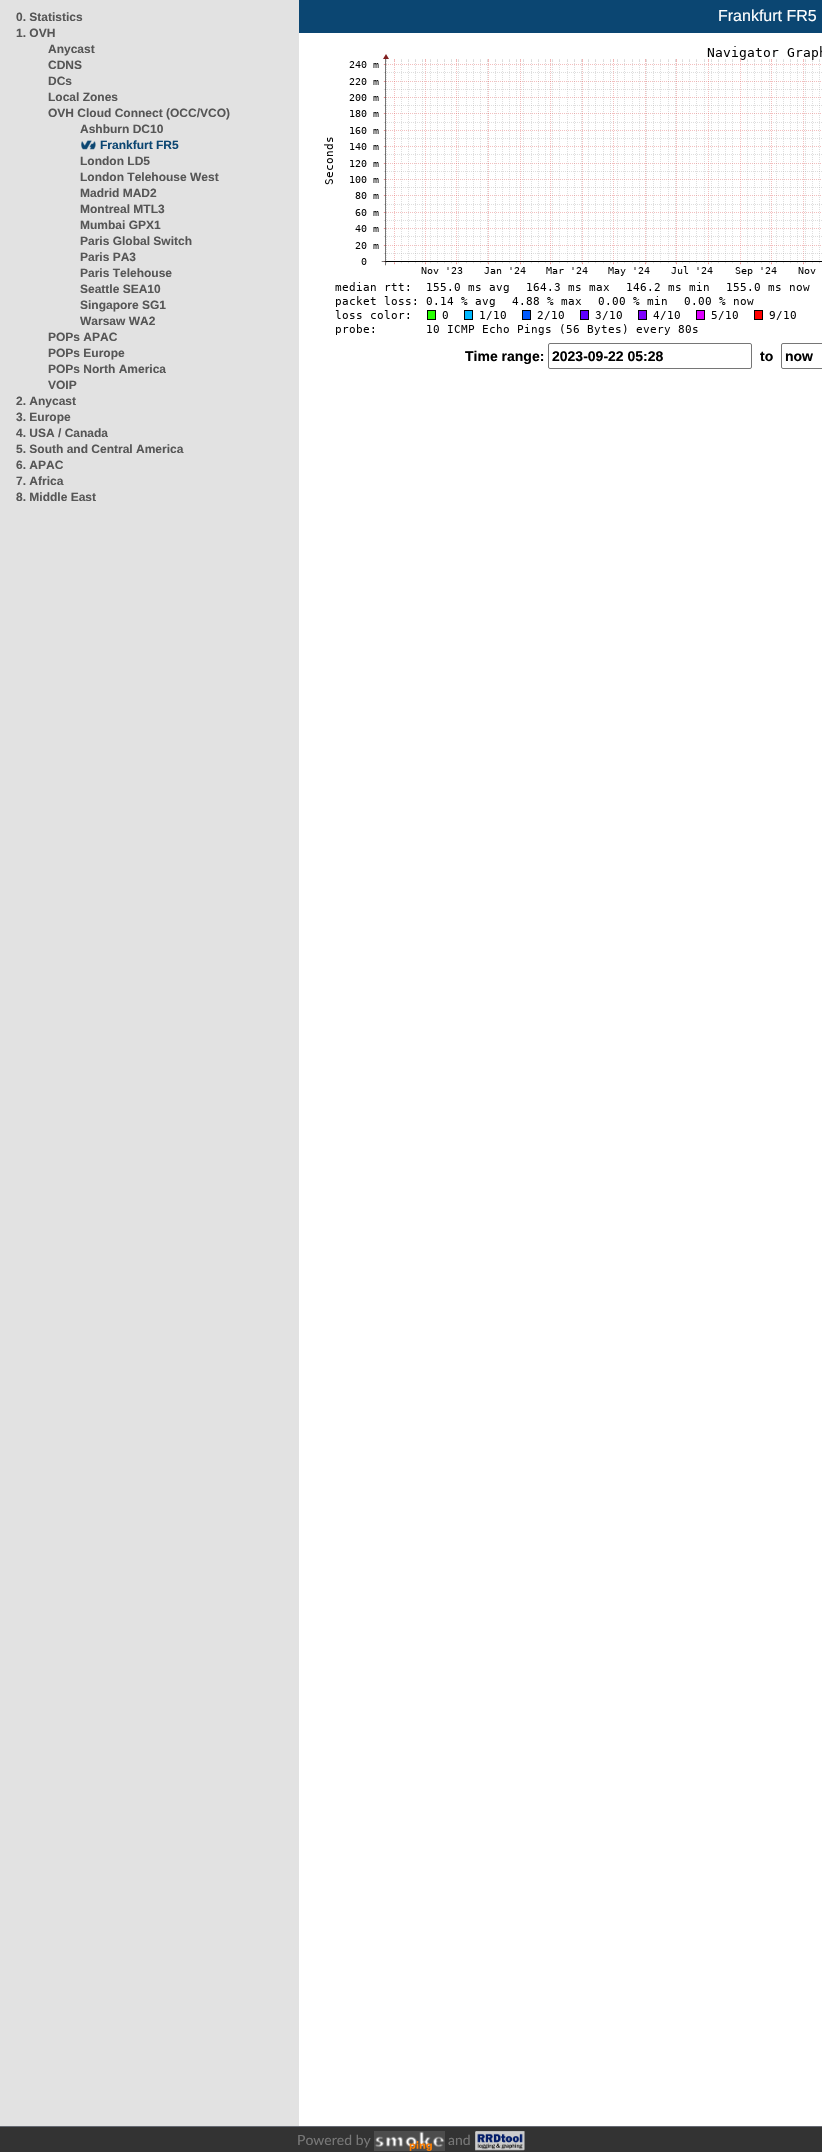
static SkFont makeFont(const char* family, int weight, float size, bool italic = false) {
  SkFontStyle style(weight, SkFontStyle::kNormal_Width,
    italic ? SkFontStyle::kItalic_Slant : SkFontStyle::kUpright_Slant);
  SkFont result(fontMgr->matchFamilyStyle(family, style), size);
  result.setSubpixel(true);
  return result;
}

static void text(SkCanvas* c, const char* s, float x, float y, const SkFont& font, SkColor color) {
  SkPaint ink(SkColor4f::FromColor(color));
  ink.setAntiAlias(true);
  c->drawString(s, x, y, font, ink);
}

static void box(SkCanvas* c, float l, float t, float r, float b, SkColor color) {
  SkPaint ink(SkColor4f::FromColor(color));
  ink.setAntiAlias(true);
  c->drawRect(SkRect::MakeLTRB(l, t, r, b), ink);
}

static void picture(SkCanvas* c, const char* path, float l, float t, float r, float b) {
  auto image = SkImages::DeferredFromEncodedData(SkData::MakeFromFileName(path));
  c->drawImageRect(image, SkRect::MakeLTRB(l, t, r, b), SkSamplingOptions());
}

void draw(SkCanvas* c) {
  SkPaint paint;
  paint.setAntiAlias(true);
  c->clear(0xffffffff);
  box(c, 0, 0, 299, 2126, 0xffe2e2e2);
  SkFont face1 = makeFont("Liberation Sans", 700, 12);
  text(c, "0. Statistics", 16, 21, face1, 0xff565656);
  text(c, "1. OVH", 16, 37, face1, 0xff565656);
  text(c, "Anycast", 48, 53, face1, 0xff565656);
  text(c, "CDNS", 48, 69, face1, 0xff565656);
  text(c, "DCs", 48, 85, face1, 0xff565656);
  text(c, "Local Zones", 48, 101, face1, 0xff565656);
  text(c, "OVH Cloud Connect (OCC/VCO)", 48, 117, face1, 0xff565656);
  text(c, "Ashburn DC10", 80, 133, face1, 0xff565656);
  picture(c, "img_01.png", 81, 140, 96, 150);
  text(c, "Frankfurt FR5", 100, 149, face1, 0xff0b4672);
  text(c, "London LD5", 80, 165, face1, 0xff565656);
  text(c, "London Telehouse West", 80, 181, face1, 0xff565656);
  text(c, "Madrid MAD2", 80, 197, face1, 0xff565656);
  text(c, "Montreal MTL3", 80, 213, face1, 0xff565656);
  text(c, "Mumbai GPX1", 80, 229, face1, 0xff565656);
  text(c, "Paris Global Switch", 80, 245, face1, 0xff565656);
  text(c, "Paris PA3", 80, 261, face1, 0xff565656);
  text(c, "Paris Telehouse", 80, 277, face1, 0xff565656);
  text(c, "Seattle SEA10", 80, 293, face1, 0xff565656);
  text(c, "Singapore SG1", 80, 309, face1, 0xff565656);
  text(c, "Warsaw WA2", 80, 325, face1, 0xff565656);
  text(c, "POPs APAC", 48, 341, face1, 0xff565656);
  text(c, "POPs Europe", 48, 357, face1, 0xff565656);
  text(c, "POPs North America", 48, 373, face1, 0xff565656);
  text(c, "VOIP", 48, 389, face1, 0xff565656);
  text(c, "2. Anycast", 16, 405, face1, 0xff565656);
  text(c, "3. Europe", 16, 421, face1, 0xff565656);
  text(c, "4. USA / Canada", 16, 437, face1, 0xff565656);
  text(c, "5. South and Central America", 16, 453, face1, 0xff565656);
  text(c, "6. APAC", 16, 469, face1, 0xff565656);
  text(c, "7. Africa", 16, 485, face1, 0xff565656);
  text(c, "8. Middle East", 16, 501, face1, 0xff565656);
  box(c, 299, 0, 822, 33, 0xff0b4672);
  SkFont face2 = makeFont("Liberation Sans", 400, 16);
  text(c, "Frankfurt FR5", 718, 21, face2, 0xffffffff);
  picture(c, "img_02.png", 324, 46, 822, 335);
  SkFont face3 = makeFont("Liberation Sans", 700, 14);
  text(c, "Time range:", 465, 361, face3, 0xff000000);
  paint.setStyle(SkPaint::kStroke_Style);
  paint.setStrokeWidth(1);
  paint.setColor(0xff767676);
  c->drawRoundRect(SkRect::MakeLTRB(548.5f, 343.5f, 751.5f, 368.5f), 1.5f, 1.5f, paint);
  text(c, "2023-09-22 05:28", 552, 361, face3, 0xff000000);
  text(c, "to", 760, 361, face3, 0xff000000);
  c->drawRoundRect(SkRect::MakeLTRB(781.5f, 343.5f, 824.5f, 368.5f), 1.5f, 1.5f, paint);
  text(c, "now", 785, 361, face3, 0xff000000);
  box(c, 0, 2127, 822, 2152, 0xff333333);
  box(c, 0, 2126, 822, 2127, 0xff666a73);
  SkFont face4 = makeFont("Lato", 400, 14);
  text(c, "Powered by", 297, 2145, face4, 0xff777777);
  picture(c, "img_03.png", 374, 2131, 445, 2151);
  text(c, "and", 448, 2145, face4, 0xff777777);
  picture(c, "img_04.png", 475, 2131, 525, 2151);
}
